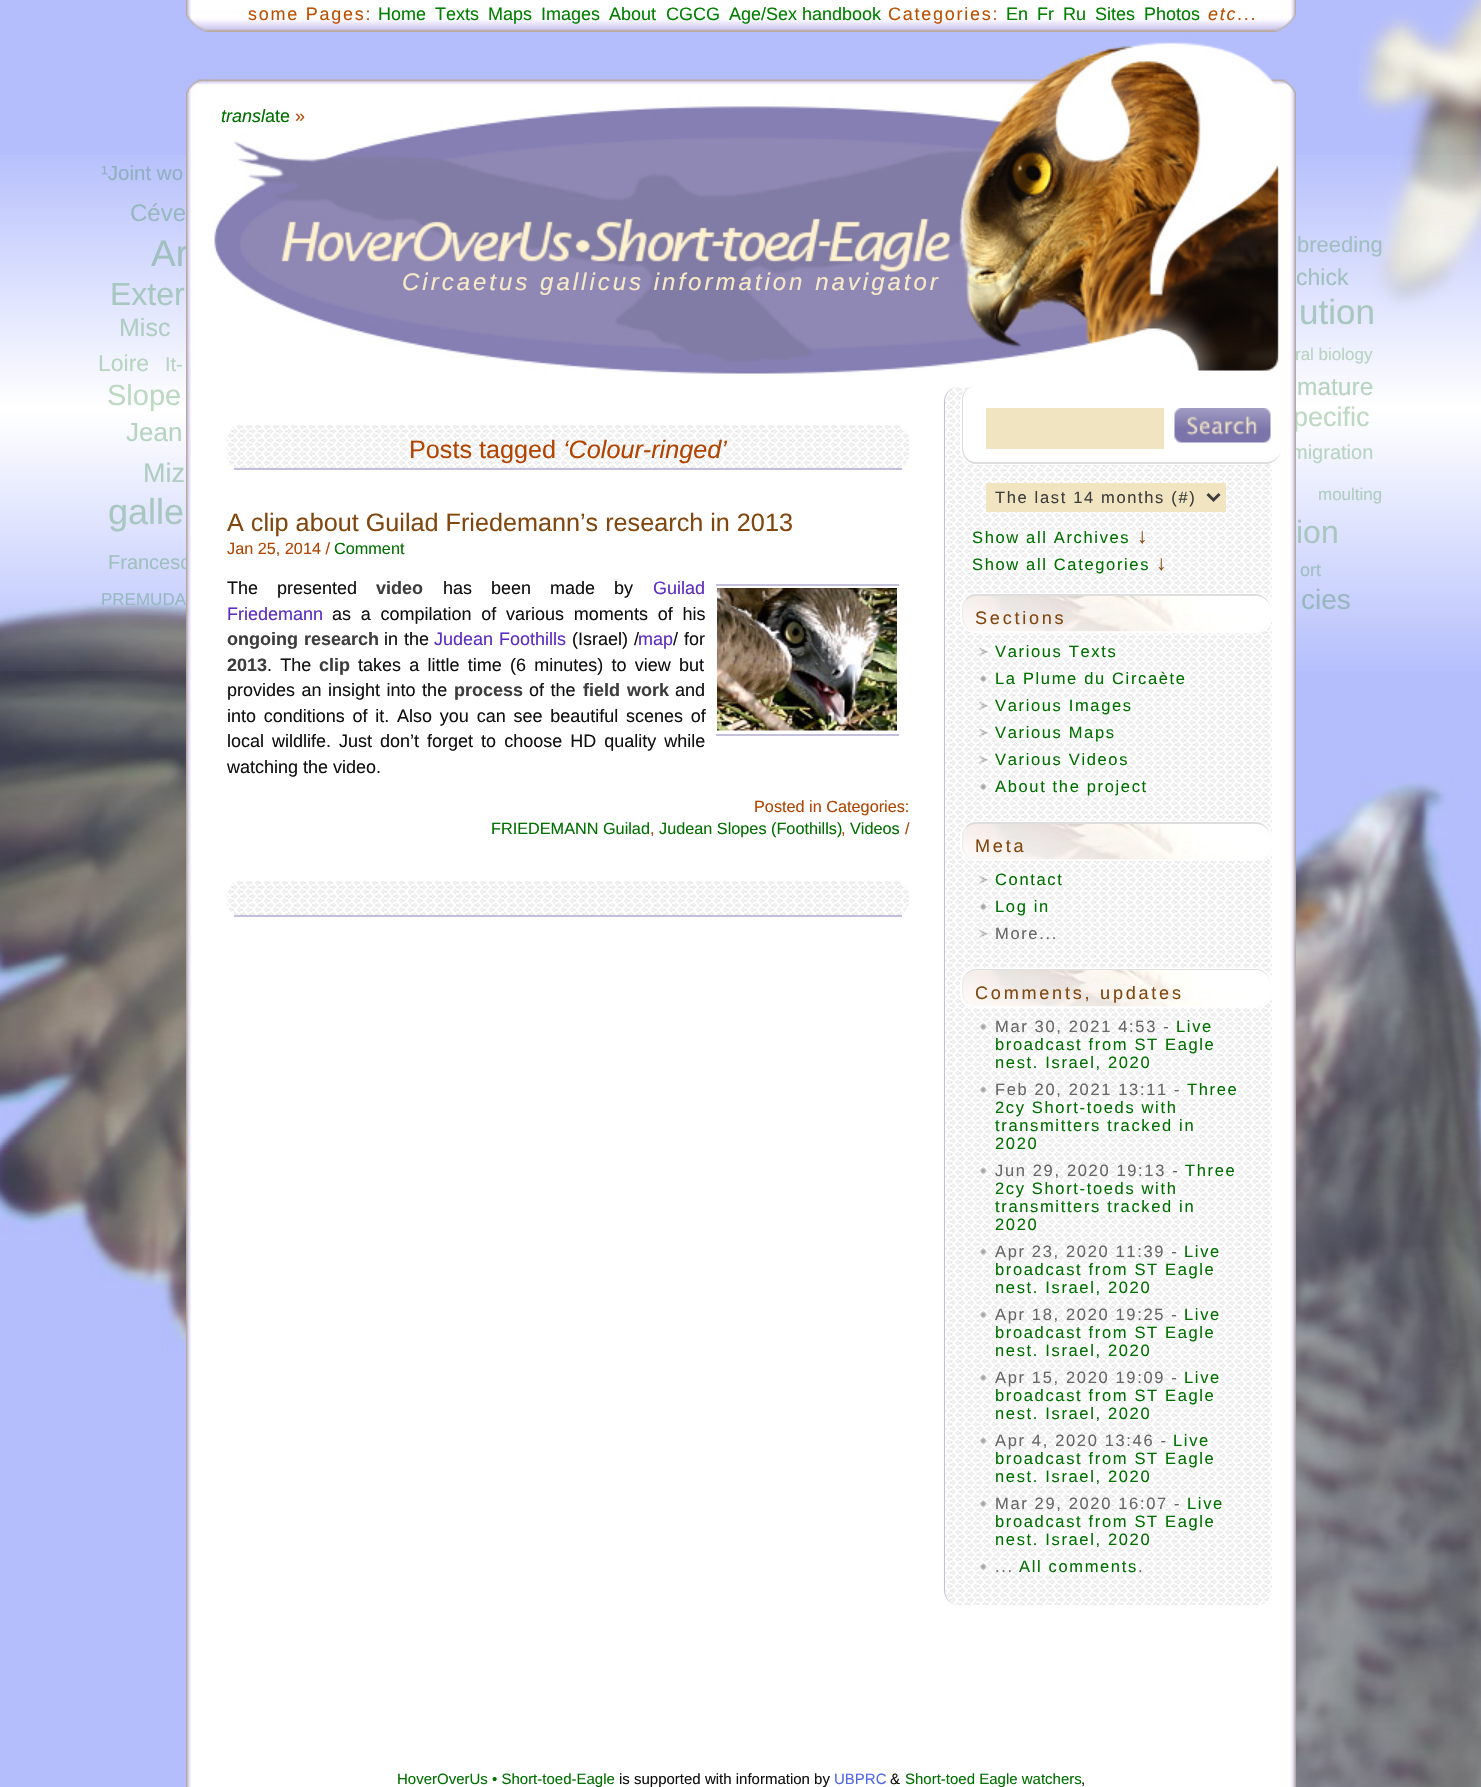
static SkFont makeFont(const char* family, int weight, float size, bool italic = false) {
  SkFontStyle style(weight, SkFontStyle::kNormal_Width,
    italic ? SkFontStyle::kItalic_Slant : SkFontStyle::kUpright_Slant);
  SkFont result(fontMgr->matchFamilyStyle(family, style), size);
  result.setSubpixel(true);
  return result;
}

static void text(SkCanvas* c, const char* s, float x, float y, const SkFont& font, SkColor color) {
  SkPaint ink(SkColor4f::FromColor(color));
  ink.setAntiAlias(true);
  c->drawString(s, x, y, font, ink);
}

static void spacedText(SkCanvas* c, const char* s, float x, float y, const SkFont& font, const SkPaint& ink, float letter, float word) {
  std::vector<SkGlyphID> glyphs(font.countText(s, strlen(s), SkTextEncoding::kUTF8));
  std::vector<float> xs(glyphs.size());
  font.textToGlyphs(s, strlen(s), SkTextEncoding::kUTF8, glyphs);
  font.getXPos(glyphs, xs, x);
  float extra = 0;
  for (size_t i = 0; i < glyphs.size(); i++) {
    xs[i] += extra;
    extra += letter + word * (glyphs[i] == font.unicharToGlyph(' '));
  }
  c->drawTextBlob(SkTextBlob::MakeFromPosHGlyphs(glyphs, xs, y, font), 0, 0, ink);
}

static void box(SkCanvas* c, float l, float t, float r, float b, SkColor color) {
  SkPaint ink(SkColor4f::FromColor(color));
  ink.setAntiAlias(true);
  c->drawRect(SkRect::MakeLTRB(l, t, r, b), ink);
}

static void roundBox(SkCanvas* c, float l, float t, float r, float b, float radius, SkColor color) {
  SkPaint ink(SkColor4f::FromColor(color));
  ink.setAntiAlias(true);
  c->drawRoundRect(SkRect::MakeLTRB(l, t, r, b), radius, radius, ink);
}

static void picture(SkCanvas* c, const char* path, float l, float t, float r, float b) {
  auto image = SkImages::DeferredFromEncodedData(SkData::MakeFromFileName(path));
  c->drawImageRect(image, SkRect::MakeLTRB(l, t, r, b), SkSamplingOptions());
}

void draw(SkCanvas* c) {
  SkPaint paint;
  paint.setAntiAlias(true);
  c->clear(0xffb4befc);
  picture(c, "img_01.png", 0, 599, 1481, 1787);
  picture(c, "img_02.png", 1358, 0, 1481, 308);
  picture(c, "img_03.png", 0, 155, 1481, 671);
  SkFont face1 = makeFont("Liberation Sans", 400, 20.5f);
  text(c, "¹Joint wo", 101, 180, face1, 0xff8eb0bf);
  SkFont face2 = makeFont("Liberation Sans", 400, 24);
  text(c, "Céve", 130, 221, face2, 0xff97b8bf);
  SkFont face3 = makeFont("Liberation Sans", 400, 37);
  text(c, "Ar", 151, 266, face3, 0xffa0bfbf);
  SkFont face4 = makeFont("Liberation Sans", 400, 32);
  text(c, "Exter", 110, 305, face4, 0xffa8c7c0);
  SkFont face5 = makeFont("Liberation Sans", 400, 25);
  text(c, "Misc", 119, 336, face5, 0xffafcdc0);
  SkFont face6 = makeFont("Liberation Sans", 400, 23);
  text(c, "Loire", 98, 371, face6, 0xffb7d4c0);
  SkFont face7 = makeFont("Liberation Sans", 400, 20);
  text(c, "It-", 165, 371, face7, 0xffb7d4c0);
  SkFont face8 = makeFont("Liberation Sans", 400, 29);
  text(c, "Slope", 107, 405, face8, 0xffbed9c1);
  SkFont face9 = makeFont("Liberation Sans", 400, 26);
  text(c, "Jean", 126, 441, face9, 0xffb7d4c0);
  SkFont face10 = makeFont("Liberation Sans", 400, 27);
  text(c, "Miz", 143, 482, face10, 0xffafcdc0);
  SkFont face11 = makeFont("Liberation Sans", 400, 36);
  text(c, "galle", 108, 524, face11, 0xffa8c7c0);
  text(c, "Francesc", 108, 569, face7, 0xffa0bfbf);
  SkFont face12 = makeFont("Liberation Sans", 400, 17);
  text(c, "PREMUDA", 101, 605, face12, 0xff97b8bf);
  text(c, "pecific", 1293, 426, face10, 0xffbed9c1);
  text(c, "migration", 1291, 459, face7, 0xffb7d4c0);
  picture(c, "img_04.png", 186, 374, 1296, 1787);
  text(c, "ral biology", 1295, 360, face12, 0xffb7d4c0);
  picture(c, "img_06.png", 186, 14, 1296, 374);
  picture(c, "img_05.png", 186, 0, 1296, 32);
  SkFont face13 = makeFont("Liberation Sans", 400, 18);
  paint.setColor(0xffbd5000);
  spacedText(c, "some Pages:", 248, 20, face13, paint, 1.75f, 0);
  text(c, "Home", 378, 20, face13, 0xff008000);
  text(c, "Texts", 435, 20, face13, 0xff008000);
  text(c, "Maps", 488, 20, face13, 0xff008000);
  text(c, "Images", 541, 20, face13, 0xff008000);
  text(c, "About", 609, 20, face13, 0xff008000);
  text(c, "CGCG", 666, 20, face13, 0xff008000);
  text(c, "Age/Sex handbook", 729, 20, face13, 0xff008000);
  spacedText(c, "Categories:", 888, 20, face13, paint, 1.75f, 0);
  text(c, "En", 1006, 20, face13, 0xff008000);
  text(c, "Fr", 1037, 20, face13, 0xff008000);
  text(c, "Ru", 1063, 20, face13, 0xff008000);
  text(c, "Sites", 1095, 20, face13, 0xff008000);
  text(c, "Photos", 1144, 20, face13, 0xff008000);
  SkFont face14 = makeFont("Liberation Sans", 400, 18, true);
  spacedText(c, "etc", 1208, 20, face14, paint, 1.75f, 0);
  spacedText(c, "...", 1237, 20, face13, paint, 1.75f, 0);
  text(c, "transl", 221, 122, face14, 0xff007000);
  text(c, "ate", 265, 122, face13, 0xff007000);
  text(c, "»", 295, 122, face13, 0xffb14401);
  SkFont face15 = makeFont("Liberation Sans", 400, 24, true);
  paint.setColor(0xfff7eac8);
  spacedText(c, "Circaetus gallicus information navigator", 402, 290, face15, paint, 3, 0);
  picture(c, "img_07.png", 226, 425, 909, 468);
  box(c, 234, 468, 902, 470, 0xffc3bfdb);
  SkFont face16 = makeFont("Liberation Sans", 400, 25.2f);
  text(c, "Posts tagged", 409, 458, face16, 0xffb14401);
  SkFont face17 = makeFont("Liberation Sans", 400, 25.2f, true);
  text(c, "‘Colour-ringed’", 563, 458, face17, 0xffb14401);
  text(c, "A clip about Guilad Friedemann’s research in 2013", 227, 531, face16, 0xff82470e);
  SkFont face18 = makeFont("Liberation Sans", 400, 16.25f);
  text(c, "Jan 25, 2014 /", 227, 554, face18, 0xffb14401);
  text(c, "Comment", 334, 554, face18, 0xff007000);
  paint.setColor(0xff111111);
  spacedText(c, "The presented", 227, 594, face13, paint, 0, 14);
  SkFont face19 = makeFont("Liberation Sans", 700, 18);
  text(c, "video", 376, 594, face19, 0xff3d3d3d);
  spacedText(c, "has been made by", 443, 594, face13, paint, 0, 14);
  text(c, "Guilad", 653, 594, face13, 0xff5d2dc1);
  text(c, "Friedemann", 227, 620, face13, 0xff5d2dc1);
  spacedText(c, "as a compilation of various moments of his", 332, 620, face13, paint, 0, 4.75f);
  paint.setColor(0xff3d3d3d);
  spacedText(c, "ongoing research", 227, 645, face19, paint, 0, 1);
  paint.setColor(0xff111111);
  spacedText(c, "in the", 384, 645, face13, paint, 0, 1);
  paint.setColor(0xff5d2dc1);
  spacedText(c, "Judean Foothills", 434, 645, face13, paint, 0, 1);
  paint.setColor(0xff111111);
  spacedText(c, "(Israel) /", 572, 645, face13, paint, 0, 1);
  text(c, "map", 638, 645, face13, 0xff5d2dc1);
  spacedText(c, "/ for", 673, 645, face13, paint, 0, 1);
  text(c, "2013", 227, 671, face19, 0xff3d3d3d);
  spacedText(c, ". The", 267, 671, face13, paint, 0, 3.25f);
  text(c, "clip", 319, 671, face19, 0xff3d3d3d);
  spacedText(c, "takes a little time (6 minutes) to view but", 358, 671, face13, paint, 0, 3.25f);
  spacedText(c, "provides an insight into the", 227, 696, face13, paint, 0, 1.5f);
  text(c, "process", 454, 696, face19, 0xff3d3d3d);
  spacedText(c, "of the", 529, 696, face13, paint, 0, 1.5f);
  paint.setColor(0xff3d3d3d);
  spacedText(c, "field work", 583, 696, face19, paint, 0, 2);
  text(c, "and", 675, 696, face13, 0xff111111);
  paint.setColor(0xff111111);
  spacedText(c, "into conditions of it. Also you can see beautiful scenes of", 227, 722, face13, paint, 0, 2.75f);
  spacedText(c, "local wildlife. Just don’t forget to choose HD quality while", 227, 747, face13, paint, 0, 3);
  text(c, "watching the video.", 227, 773, face13, 0xff111111);
  box(c, 716, 584, 899, 586, 0xffc4c0db);
  picture(c, "img_08.png", 717, 588, 897, 731);
  box(c, 716, 734, 899, 736, 0xffc4c0db);
  text(c, "Posted in Categories:", 754, 812, face18, 0xffb14401);
  text(c, "FRIEDEMANN Guilad", 491, 834, face18, 0xff007000);
  text(c, ",", 650, 834, face18, 0xffb14401);
  text(c, "Judean Slopes (Foothills)", 659, 834, face18, 0xff007000);
  text(c, ",", 841, 834, face18, 0xffb14401);
  text(c, "Videos", 850, 834, face18, 0xff007000);
  text(c, "/", 905, 834, face18, 0xffb14401);
  picture(c, "img_09.png", 226, 881, 909, 915);
  box(c, 234, 915, 902, 917, 0xffc3bfdb);
  picture(c, "img_10.png", 943, 387, 1273, 1605);
  paint.setColor(0xffffffff);
  c->drawPath(SkPathBuilder().moveTo(1274, 398).cubicTo(1272, 392, 1266, 387, 1258, 387).cubicTo(1266, 387, 1272, 394, 1272, 402).lineTo(1272, 1590).cubicTo(1272, 1598, 1266, 1605, 1258, 1605).cubicTo(1266, 1605, 1272, 1600, 1274, 1594).close().detach(), paint);
  paint.setColor(0xffc3bfdb);
  c->drawPath(SkPathBuilder().moveTo(958, 387).cubicTo(950, 387, 944, 394, 944, 402).lineTo(944, 1590).cubicTo(944, 1598, 950, 1605, 958, 1605).cubicTo(951, 1605, 945, 1598, 945, 1590).lineTo(945, 402).cubicTo(945, 394, 951, 387, 958, 387).close().detach(), paint);
  paint.setStyle(SkPaint::kStroke_Style);
  paint.setStrokeWidth(2);
  paint.setColor(0xffffffff);
  c->drawRoundRect(SkRect::MakeLTRB(961, 388, 1271, 464), 14, 14, paint);
  roundBox(c, 962, 386, 1281, 464, 15, 0xffffffff);
  paint.setStyle(SkPaint::kFill_Style);
  paint.setColor(0xffdddddd);
  c->drawPath(SkPathBuilder(SkPathFillType::kEvenOdd).moveTo(976, 386).lineTo(1266, 386).cubicTo(1274, 386, 1281, 392, 1281, 400).lineTo(1281, 448).cubicTo(1281, 457, 1274, 464, 1266, 464).lineTo(976, 464).cubicTo(968, 464, 962, 457, 962, 448).lineTo(962, 400).cubicTo(962, 392, 968, 386, 976, 386).close().moveTo(976, 386).lineTo(1266, 386).cubicTo(1274, 386, 1281, 392, 1281, 400).lineTo(1281, 448).cubicTo(1281, 456, 1274, 462, 1266, 462).lineTo(976, 462).cubicTo(969, 462, 963, 456, 963, 448).lineTo(963, 400).cubicTo(963, 392, 969, 386, 976, 386).close().detach(), paint);
  box(c, 986, 408, 1164, 449, 0xfff1e4c1);
  picture(c, "img_11.png", 1174, 408, 1271, 443);
  box(c, 986, 483, 1226, 512, 0xfff1e4c1);
  paint.setStyle(SkPaint::kStroke_Style);
  paint.setStrokeWidth(3);
  paint.setColor(0xff3d3d3d);
  c->drawPath(SkPathBuilder().moveTo(1207.5f, 494).lineTo(1213.5f, 500).lineTo(1219.5f, 494).detach(), paint);
  SkFont face20 = makeFont("Liberation Sans", 400, 16.5f);
  paint.setStyle(SkPaint::kFill_Style);
  spacedText(c, "The last 14 months (#)", 995, 503, face20, paint, 1.65f, 0);
  picture(c, "img_12.png", 969, 530, 1133, 546);
  SkFont face21 = makeFont("Liberation Sans", 400, 21);
  paint.setColor(0xff82470e);
  spacedText(c, "↓", 1137, 543, face21, paint, 1.65f, 0);
  paint.setColor(0xff007000);
  spacedText(c, "Show all Archives", 972, 543, face20, paint, 1.65f, 0);
  picture(c, "img_13.png", 969, 557, 1153, 573);
  paint.setColor(0xff82470e);
  spacedText(c, "↓", 1156, 570, face21, paint, 1.65f, 0);
  paint.setColor(0xff007000);
  spacedText(c, "Show all Categories", 972, 570, face20, paint, 1.65f, 0);
  paint.setStyle(SkPaint::kStroke_Style);
  paint.setStrokeWidth(2);
  paint.setColor(0xffffffff);
  c->drawRoundRect(SkRect::MakeLTRB(961, 594, 1271, 632), 14, 14, paint);
  picture(c, "img_14.png", 962, 594, 1270, 632);
  paint.setStyle(SkPaint::kFill_Style);
  paint.setColor(0xffdddddd);
  c->drawPath(SkPathBuilder().moveTo(976, 594).lineTo(1256, 594).cubicTo(1264, 594, 1270, 601, 1270, 609).cubicTo(1270, 602, 1264, 596, 1256, 596).lineTo(976, 596).cubicTo(973, 596, 969, 597, 967, 600).lineTo(966, 598).cubicTo(968, 596, 972, 594, 976, 594).close().detach(), paint);
  paint.setColor(0xffeeeeee);
  c->drawPath(SkPathBuilder().moveTo(973, 631.5f).lineTo(972.5f, 631.5f).cubicTo(966.5f, 629.5f, 962, 623.5f, 962, 616).lineTo(962, 609).cubicTo(962, 605, 963.5f, 601, 966, 598.5f).lineTo(967, 599.5f).cubicTo(964.5f, 602, 963, 605.5f, 963, 609).lineTo(963, 616).cubicTo(963, 623.5f, 967.5f, 629.5f, 973, 631.5f).close().detach(), paint);
  SkFont face22 = makeFont("Liberation Sans", 400, 18.1f);
  paint.setColor(0xff82470e);
  spacedText(c, "Sections", 975, 624, face22, paint, 2.75f, 0);
  picture(c, "img_15.png", 979, 648, 989, 656);
  picture(c, "img_16.png", 992, 644, 1120, 660);
  paint.setColor(0xff007000);
  spacedText(c, "Various Texts", 995, 657, face20, paint, 1.65f, 0);
  picture(c, "img_17.png", 979, 675, 987, 683);
  picture(c, "img_18.png", 992, 671, 1188, 687);
  spacedText(c, "La Plume du Circaète", 995, 684, face20, paint, 1.65f, 0);
  picture(c, "img_15.png", 979, 702, 989, 710);
  picture(c, "img_19.png", 992, 698, 1134, 714);
  spacedText(c, "Various Images", 995, 711, face20, paint, 1.65f, 0);
  picture(c, "img_15.png", 979, 729, 989, 737);
  picture(c, "img_20.png", 992, 725, 1117, 741);
  spacedText(c, "Various Maps", 995, 738, face20, paint, 1.65f, 0);
  picture(c, "img_21.png", 979, 756, 989, 764);
  picture(c, "img_22.png", 992, 752, 1131, 768);
  spacedText(c, "Various Videos", 995, 765, face20, paint, 1.65f, 0);
  picture(c, "img_17.png", 979, 783, 987, 791);
  picture(c, "img_23.png", 992, 779, 1150, 795);
  spacedText(c, "About the project", 995, 792, face20, paint, 1.65f, 0);
  paint.setStyle(SkPaint::kStroke_Style);
  paint.setColor(0xffffffff);
  c->drawRoundRect(SkRect::MakeLTRB(961, 822, 1271, 860), 14, 14, paint);
  picture(c, "img_24.png", 962, 822, 1270, 860);
  paint.setStyle(SkPaint::kFill_Style);
  paint.setColor(0xffdddddd);
  c->drawPath(SkPathBuilder().moveTo(976, 822).lineTo(1256, 822).cubicTo(1264, 822, 1270, 829, 1270, 837).cubicTo(1270, 830, 1264, 824, 1256, 824).lineTo(976, 824).cubicTo(973, 824, 969, 825, 967, 828).lineTo(966, 826).cubicTo(968, 824, 972, 822, 976, 822).close().detach(), paint);
  paint.setColor(0xffeeeeee);
  c->drawPath(SkPathBuilder().moveTo(973, 859.5f).lineTo(972.5f, 859.5f).cubicTo(966.5f, 857.5f, 962, 851.5f, 962, 844).lineTo(962, 837).cubicTo(962, 833, 963.5f, 829, 966, 826.5f).lineTo(967, 827.5f).cubicTo(964.5f, 830, 963, 833.5f, 963, 837).lineTo(963, 844).cubicTo(963, 851.5f, 967.5f, 857.5f, 973, 859.5f).close().detach(), paint);
  paint.setColor(0xff82470e);
  spacedText(c, "Meta", 975, 852, face22, paint, 2.75f, 0);
  picture(c, "img_25.png", 979, 876, 989, 884);
  picture(c, "img_26.png", 992, 872, 1065, 888);
  paint.setColor(0xff007000);
  spacedText(c, "Contact", 995, 885, face20, paint, 1.65f, 0);
  picture(c, "img_27.png", 979, 903, 987, 911);
  picture(c, "img_28.png", 992, 899, 1052, 915);
  spacedText(c, "Log in", 995, 912, face20, paint, 1.65f, 0);
  picture(c, "img_29.png", 979, 930, 989, 938);
  paint.setColor(0xff666666);
  spacedText(c, "More...", 995, 939, face20, paint, 1.65f, 0);
  paint.setStyle(SkPaint::kStroke_Style);
  paint.setColor(0xffffffff);
  c->drawRoundRect(SkRect::MakeLTRB(961, 969, 1271, 1007), 14, 14, paint);
  picture(c, "img_30.png", 962, 969, 1270, 1007);
  paint.setStyle(SkPaint::kFill_Style);
  paint.setColor(0xffdddddd);
  c->drawPath(SkPathBuilder().moveTo(976, 969).lineTo(1256, 969).cubicTo(1264, 969, 1270, 976, 1270, 984).cubicTo(1270, 977, 1264, 970, 1256, 970).lineTo(976, 970).cubicTo(972, 970, 969, 972, 967, 974).lineTo(966, 974).cubicTo(968, 971, 972, 969, 976, 969).close().detach(), paint);
  paint.setColor(0xffeeeeee);
  c->drawPath(SkPathBuilder().moveTo(966, 973.5f).lineTo(967, 974.5f).cubicTo(964.5f, 977, 963, 980.5f, 963, 984).lineTo(963, 992).cubicTo(963, 1000, 969, 1006, 976, 1006).cubicTo(968, 1006, 962, 1000, 962, 992).lineTo(962, 984).cubicTo(962, 980, 963.5f, 976, 966, 973.5f).close().detach(), paint);
  paint.setColor(0xff82470e);
  spacedText(c, "Comments, updates", 975, 999, face22, paint, 2.75f, 0);
  picture(c, "img_31.png", 979, 1023, 987, 1031);
  paint.setColor(0xff666666);
  spacedText(c, "Mar 30, 2021 4:53 -", 995, 1032, face20, paint, 1.65f, 0);
  picture(c, "img_32.png", 995, 1019, 1215, 1071);
  paint.setColor(0xff007000);
  spacedText(c, "Live", 1176, 1032, face20, paint, 1.65f, 0);
  spacedText(c, "broadcast from ST Eagle", 995, 1050, face20, paint, 1.65f, 0);
  spacedText(c, "nest. Israel, 2020", 995, 1068, face20, paint, 1.65f, 0);
  picture(c, "img_31.png", 979, 1086, 987, 1094);
  paint.setColor(0xff666666);
  spacedText(c, "Feb 20, 2021 13:11 -", 995, 1095, face20, paint, 1.65f, 0);
  picture(c, "img_33.png", 995, 1082, 1239, 1152);
  paint.setColor(0xff007000);
  spacedText(c, "Three", 1187, 1095, face20, paint, 1.65f, 0);
  spacedText(c, "2cy Short-toeds with", 995, 1113, face20, paint, 1.65f, 0);
  spacedText(c, "transmitters tracked in", 995, 1131, face20, paint, 1.65f, 0);
  spacedText(c, "2020", 995, 1149, face20, paint, 1.65f, 0);
  picture(c, "img_31.png", 979, 1167, 987, 1175);
  paint.setColor(0xff666666);
  spacedText(c, "Jun 29, 2020 19:13 -", 995, 1176, face20, paint, 1.65f, 0);
  picture(c, "img_34.png", 995, 1163, 1236, 1233);
  paint.setColor(0xff007000);
  spacedText(c, "Three", 1185, 1176, face20, paint, 1.65f, 0);
  spacedText(c, "2cy Short-toeds with", 995, 1194, face20, paint, 1.65f, 0);
  spacedText(c, "transmitters tracked in", 995, 1212, face20, paint, 1.65f, 0);
  spacedText(c, "2020", 995, 1230, face20, paint, 1.65f, 0);
  picture(c, "img_31.png", 979, 1248, 987, 1256);
  paint.setColor(0xff666666);
  spacedText(c, "Apr 23, 2020 11:39 -", 995, 1257, face20, paint, 1.65f, 0);
  picture(c, "img_35.png", 995, 1244, 1221, 1296);
  paint.setColor(0xff007000);
  spacedText(c, "Live", 1184, 1257, face20, paint, 1.65f, 0);
  spacedText(c, "broadcast from ST Eagle", 995, 1275, face20, paint, 1.65f, 0);
  spacedText(c, "nest. Israel, 2020", 995, 1293, face20, paint, 1.65f, 0);
  picture(c, "img_31.png", 979, 1311, 987, 1319);
  paint.setColor(0xff666666);
  spacedText(c, "Apr 18, 2020 19:25 -", 995, 1320, face20, paint, 1.65f, 0);
  picture(c, "img_36.png", 995, 1307, 1221, 1359);
  paint.setColor(0xff007000);
  spacedText(c, "Live", 1184, 1320, face20, paint, 1.65f, 0);
  spacedText(c, "broadcast from ST Eagle", 995, 1338, face20, paint, 1.65f, 0);
  spacedText(c, "nest. Israel, 2020", 995, 1356, face20, paint, 1.65f, 0);
  picture(c, "img_31.png", 979, 1374, 987, 1382);
  paint.setColor(0xff666666);
  spacedText(c, "Apr 15, 2020 19:09 -", 995, 1383, face20, paint, 1.65f, 0);
  picture(c, "img_37.png", 995, 1370, 1221, 1422);
  paint.setColor(0xff007000);
  spacedText(c, "Live", 1184, 1383, face20, paint, 1.65f, 0);
  spacedText(c, "broadcast from ST Eagle", 995, 1401, face20, paint, 1.65f, 0);
  spacedText(c, "nest. Israel, 2020", 995, 1419, face20, paint, 1.65f, 0);
  picture(c, "img_31.png", 979, 1437, 987, 1445);
  paint.setColor(0xff666666);
  spacedText(c, "Apr 4, 2020 13:46 -", 995, 1446, face20, paint, 1.65f, 0);
  picture(c, "img_38.png", 995, 1433, 1215, 1485);
  paint.setColor(0xff007000);
  spacedText(c, "Live", 1173, 1446, face20, paint, 1.65f, 0);
  spacedText(c, "broadcast from ST Eagle", 995, 1464, face20, paint, 1.65f, 0);
  spacedText(c, "nest. Israel, 2020", 995, 1482, face20, paint, 1.65f, 0);
  picture(c, "img_31.png", 979, 1500, 987, 1508);
  paint.setColor(0xff666666);
  spacedText(c, "Mar 29, 2020 16:07 -", 995, 1509, face20, paint, 1.65f, 0);
  picture(c, "img_39.png", 995, 1496, 1224, 1548);
  paint.setColor(0xff007000);
  spacedText(c, "Live", 1187, 1509, face20, paint, 1.65f, 0);
  spacedText(c, "broadcast from ST Eagle", 995, 1527, face20, paint, 1.65f, 0);
  spacedText(c, "nest. Israel, 2020", 995, 1545, face20, paint, 1.65f, 0);
  picture(c, "img_31.png", 979, 1563, 987, 1571);
  picture(c, "img_40.png", 1017, 1559, 1141, 1575);
  paint.setColor(0xff666666);
  spacedText(c, "...", 995, 1572, face20, paint, 1.65f, 0);
  paint.setColor(0xff007000);
  spacedText(c, "All comments", 1019, 1572, face20, paint, 1.65f, 0);
  paint.setColor(0xff666666);
  spacedText(c, ".", 1138, 1572, face20, paint, 1.65f, 0);
  SkFont face23 = makeFont("Liberation Sans", 400, 15);
  text(c, "HoverOverUs • Short-toed-Eagle", 397, 1784, face23, 0xff007000);
  text(c, "is supported with information by", 619, 1784, face23, 0xff111111);
  text(c, "UBPRC", 834, 1784, face23, 0xff4f68e8);
  text(c, "&", 890, 1784, face23, 0xff111111);
  text(c, "Short-toed Eagle watchers", 905, 1784, face23, 0xff007000);
  text(c, ",", 1081, 1784, face23, 0xff111111);
  SkFont face24 = makeFont("Liberation Sans", 400, 22);
  text(c, "breeding", 1297, 252, face24, 0xffa0bfbf);
  text(c, "chick", 1296, 285, face6, 0xffa0bfbf);
  SkFont face25 = makeFont("Liberation Sans", 400, 35);
  text(c, "ution", 1299, 324, face25, 0xffa8c7c0);
  SkFont face26 = makeFont("Liberation Sans", 400, 24.5f);
  text(c, "mature", 1297, 395, face26, 0xffb7d4c0);
  text(c, "moulting", 1318, 500, face12, 0xffafcdc0);
  text(c, "ion", 1296, 543, face4, 0xffa8c7c0);
  text(c, "ort", 1300, 576, face13, 0xffa0bfbf);
  SkFont face27 = makeFont("Liberation Sans", 400, 28);
  text(c, "cies", 1301, 609, face27, 0xff97b8bf);
}
